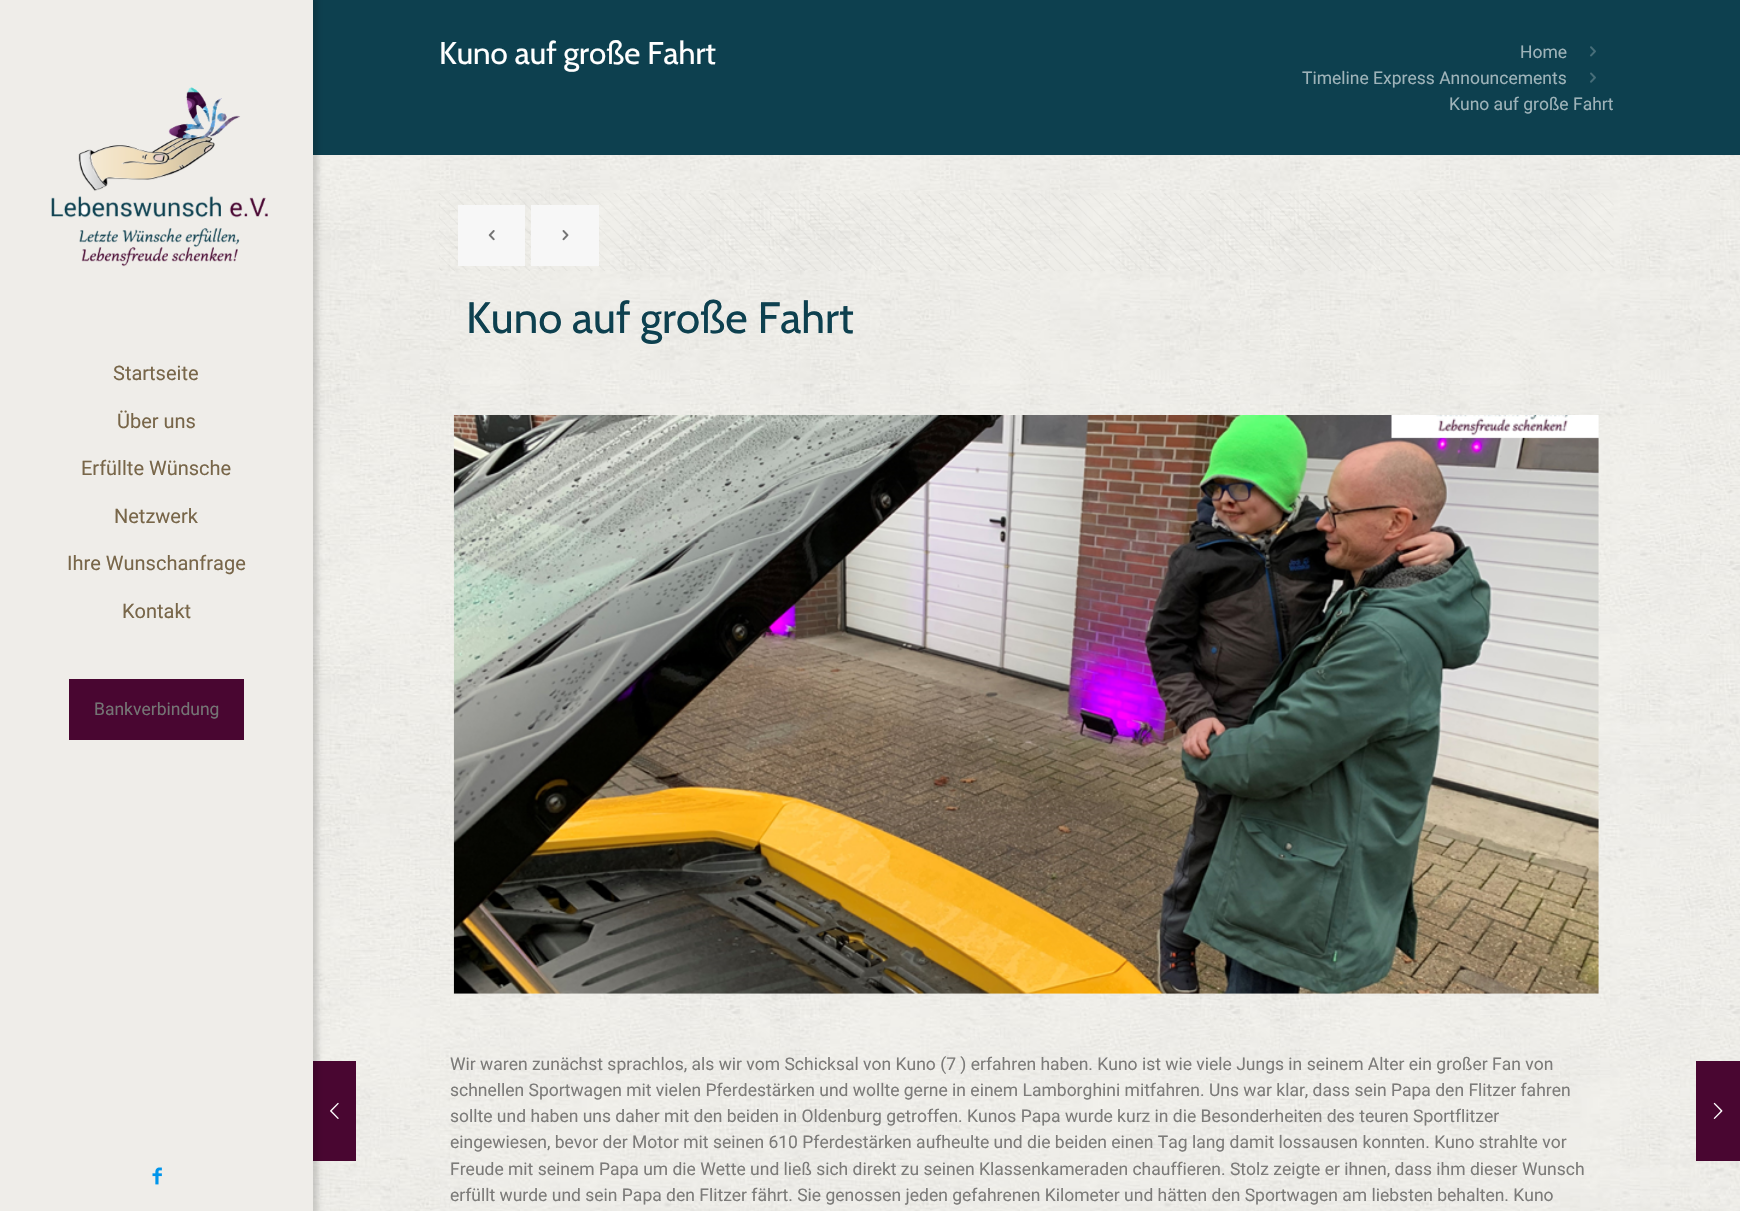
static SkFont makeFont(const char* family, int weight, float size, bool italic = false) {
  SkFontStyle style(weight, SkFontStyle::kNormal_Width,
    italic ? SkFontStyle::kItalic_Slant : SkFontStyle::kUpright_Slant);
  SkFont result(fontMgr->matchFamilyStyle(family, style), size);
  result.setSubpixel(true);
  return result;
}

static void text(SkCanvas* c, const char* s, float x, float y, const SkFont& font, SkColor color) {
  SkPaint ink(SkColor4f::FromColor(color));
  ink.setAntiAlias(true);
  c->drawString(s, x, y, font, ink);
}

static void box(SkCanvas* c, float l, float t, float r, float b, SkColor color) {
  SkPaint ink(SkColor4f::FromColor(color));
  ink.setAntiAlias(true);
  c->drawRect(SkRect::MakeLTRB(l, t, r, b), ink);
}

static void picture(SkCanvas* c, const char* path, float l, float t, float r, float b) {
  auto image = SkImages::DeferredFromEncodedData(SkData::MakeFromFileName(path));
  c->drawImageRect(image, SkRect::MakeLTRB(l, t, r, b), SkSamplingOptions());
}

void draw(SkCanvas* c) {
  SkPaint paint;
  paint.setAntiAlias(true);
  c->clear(0xffffffff);
  picture(c, "img_01.png", 313, 155, 1740, 1211);
  box(c, 313, 0, 1740, 155, 0xff0d404f);
  box(c, 313, 1061, 356, 1161, 0xff490631);
  paint.setColor(0x26000000);
  paint.setMaskFilter(SkMaskFilter::MakeBlur(kNormal_SkBlurStyle, 2.5f));
  c->drawRect(SkRect::MakeLTRB(0, -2, 318, 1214), paint);
  paint.setMaskFilter(nullptr);
  box(c, 0, 0, 313, 1211, 0xffefede9);
  picture(c, "img_02.png", 51, 87, 268, 267);
  SkFont face1 = makeFont("Roboto", 400, 20);
  text(c, "Startseite", 113, 380, face1, 0xff786649);
  text(c, "Über uns", 117, 428, face1, 0xff786649);
  text(c, "Erfüllte Wünsche", 81, 475, face1, 0xff786649);
  text(c, "Netzwerk", 114, 523, face1, 0xff786649);
  text(c, "Ihre Wunschanfrage", 67, 570, face1, 0xff786649);
  text(c, "Kontakt", 122, 618, face1, 0xff786649);
  box(c, 69, 679, 244, 740, 0xff490631);
  SkFont face2 = makeFont("Roboto", 400, 17.5f);
  text(c, "Bankverbindung", 94, 715, face2, 0xff747474);
  picture(c, "img_03.png", 152, 1167, 162, 1185);
  SkFont face3 = makeFont("Cabin", 400, 31.25f);
  text(c, "Kuno auf große Fahrt", 439, 64, face3, 0xffffffff);
  text(c, "Home", 1520, 58, face2, 0xff9eb3b9);
  picture(c, "img_04.png", 1590, 46, 1596, 57);
  text(c, "Timeline Express Announcements", 1302, 84, face2, 0xff9eb3b9);
  picture(c, "img_05.png", 1590, 72, 1596, 83);
  text(c, "Kuno auf große Fahrt", 1449, 110, face2, 0xff9eb3b9);
  picture(c, "img_06.png", 439, 193, 1614, 271);
  box(c, 458, 205, 525, 266, 0xfff7f7f7);
  picture(c, "img_07.png", 488, 230, 495, 241);
  box(c, 531, 205, 599, 266, 0xfff7f7f7);
  picture(c, "img_08.png", 562, 230, 569, 241);
  SkFont face4 = makeFont("Cabin", 400, 43.75f);
  text(c, "Kuno auf große Fahrt", 466, 333, face4, 0xff0d404f);
  picture(c, "img_09.png", 453, 415, 1599, 994);
  text(c, "Wir waren zunächst sprachlos, als wir vom Schicksal von Kuno (7 ) erfahren haben. Kuno ist wie viele Jungs in seinem Alter ein großer Fan von", 450, 1070, face2, 0xff7c7b79);
  text(c, "schnellen Sportwagen mit vielen Pferdestärken und wollte gerne in einem Lamborghini mitfahren. Uns war klar, dass sein Papa den Flitzer fahren", 450, 1096, face2, 0xff7c7b79);
  text(c, "sollte und haben uns daher mit den beiden in Oldenburg getroffen. Kunos Papa wurde kurz in die Besonderheiten des teuren Sportflitzer", 450, 1122, face2, 0xff7c7b79);
  text(c, "eingewiesen, bevor der Motor mit seinen 610 Pferdestärken aufheulte und die beiden einen Tag lang damit lossausen konnten. Kuno strahlte vor", 450, 1148, face2, 0xff7c7b79);
  text(c, "Freude mit seinem Papa um die Wette und ließ sich direkt zu seinen Klassenkameraden chauffieren. Stolz zeigte er ihnen, dass ihm dieser Wunsch", 450, 1175, face2, 0xff7c7b79);
  text(c, "erfüllt wurde und sein Papa den Flitzer fährt. Sie genossen jeden gefahrenen Kilometer und hätten den Sportwagen am liebsten behalten. Kuno", 450, 1201, face2, 0xff7c7b79);
  picture(c, "img_10.png", 330, 1102, 339, 1119);
  box(c, 1696, 1061, 1740, 1161, 0xff490631);
  picture(c, "img_11.png", 1713, 1102, 1723, 1119);
}
